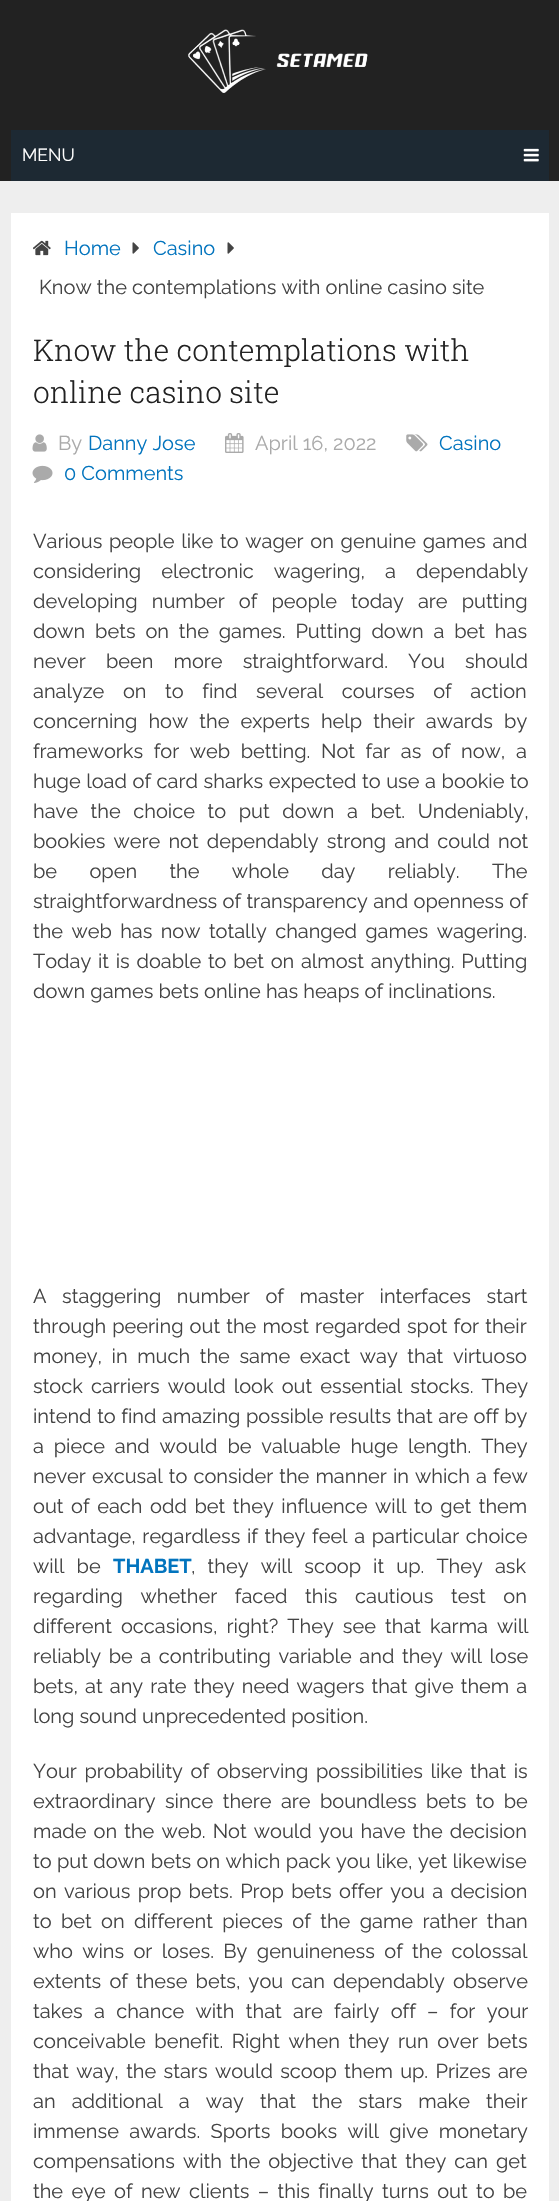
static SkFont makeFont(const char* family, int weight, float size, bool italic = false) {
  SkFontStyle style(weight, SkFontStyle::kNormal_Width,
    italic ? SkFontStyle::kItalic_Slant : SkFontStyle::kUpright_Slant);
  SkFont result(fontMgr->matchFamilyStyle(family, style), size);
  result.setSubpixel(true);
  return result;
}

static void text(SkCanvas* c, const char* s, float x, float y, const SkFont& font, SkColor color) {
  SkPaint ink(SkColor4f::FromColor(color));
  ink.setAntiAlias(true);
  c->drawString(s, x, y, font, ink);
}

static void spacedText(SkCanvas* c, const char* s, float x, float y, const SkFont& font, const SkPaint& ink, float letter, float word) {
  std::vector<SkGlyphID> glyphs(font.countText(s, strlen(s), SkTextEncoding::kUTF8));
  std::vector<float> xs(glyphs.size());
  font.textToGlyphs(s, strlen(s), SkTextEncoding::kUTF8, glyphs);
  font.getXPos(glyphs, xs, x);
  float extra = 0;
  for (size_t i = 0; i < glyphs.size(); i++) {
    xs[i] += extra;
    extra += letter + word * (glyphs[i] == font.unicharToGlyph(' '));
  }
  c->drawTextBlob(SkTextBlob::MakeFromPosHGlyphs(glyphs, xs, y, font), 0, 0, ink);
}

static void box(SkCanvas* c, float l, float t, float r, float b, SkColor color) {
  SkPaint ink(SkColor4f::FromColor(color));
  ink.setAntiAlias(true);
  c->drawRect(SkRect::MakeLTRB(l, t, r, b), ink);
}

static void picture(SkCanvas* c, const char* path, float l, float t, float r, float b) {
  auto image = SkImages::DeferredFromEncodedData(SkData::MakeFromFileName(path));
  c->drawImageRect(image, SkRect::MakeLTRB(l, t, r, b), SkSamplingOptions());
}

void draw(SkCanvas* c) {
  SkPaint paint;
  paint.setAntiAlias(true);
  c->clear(0xffeeeeee);
  box(c, 0, 0, 559, 181, 0xff222222);
  picture(c, "img_01.png", 188, 29, 368, 93);
  box(c, 11, 130, 549, 181, 0xff1d2933);
  SkFont face1 = makeFont("Raleway", 400, 17.5f);
  text(c, "MENU", 22, 161, face1, 0xffffffff);
  picture(c, "img_02.png", 523, 148, 539, 162);
  box(c, 11, 213, 549, 2201, 0xffffffff);
  picture(c, "img_03.png", 33, 240, 51, 256);
  SkFont face2 = makeFont("Raleway", 400, 20);
  text(c, "Home", 64, 255, face2, 0xff0274be);
  picture(c, "img_04.png", 132, 242, 139, 254);
  text(c, "Casino", 153, 255, face2, 0xff0274be);
  picture(c, "img_04.png", 227, 242, 234, 254);
  text(c, "Know the contemplations with online casino site", 39, 294, face2, 0xff444444);
  SkFont face3 = makeFont("Roboto Slab", 300, 30);
  text(c, "Know the contemplations with", 33, 361, face3, 0xff222222);
  text(c, "online casino site", 33, 403, face3, 0xff222222);
  picture(c, "img_05.png", 32, 434, 47, 452);
  text(c, "By", 58, 450, face2, 0xffaaaaaa);
  text(c, "Danny Jose", 88, 450, face2, 0xff0274be);
  picture(c, "img_06.png", 225, 433, 244, 453);
  text(c, "April 16, 2022", 255, 450, face2, 0xffaaaaaa);
  picture(c, "img_07.png", 406, 434, 428, 452);
  text(c, "Casino", 439, 450, face2, 0xff0274be);
  picture(c, "img_08.png", 32, 465, 53, 483);
  text(c, "0 Comments", 64, 480, face2, 0xff0274be);
  paint.setColor(0xff444444);
  spacedText(c, "Various people like to wager on genuine games and", 33, 548, face2, paint, 0, 1.6f);
  spacedText(c, "considering electronic wagering, a dependably", 33, 578, face2, paint, 0, 15);
  spacedText(c, "developing number of people today are putting", 33, 608, face2, paint, 0, 9);
  spacedText(c, "down bets on the games. Putting down a bet has", 33, 638, face2, paint, 0, 4.75f);
  spacedText(c, "never been more straightforward. You should", 33, 668, face2, paint, 0, 15);
  spacedText(c, "analyze on to find several courses of action", 33, 698, face2, paint, 0, 13.5f);
  spacedText(c, "concerning how the experts help their awards by", 33, 728, face2, paint, 0, 6);
  spacedText(c, "frameworks for web betting. Not far as of now, a", 33, 758, face2, paint, 0, 5.5f);
  spacedText(c, "huge load of card sharks expected to use a bookie to", 33, 788, face2, paint, 0, 0.5f);
  spacedText(c, "have the choice to put down a bet. Undeniably,", 33, 818, face2, paint, 0, 7.5f);
  spacedText(c, "bookies were not dependably strong and could not", 33, 848, face2, paint, 0, 3);
  spacedText(c, "be open the whole day reliably. The", 33, 878, face2, paint, 0, 27.25f);
  spacedText(c, "straightforwardness of transparency and openness of", 33, 908, face2, paint, 0, 0.25f);
  spacedText(c, "the web has now totally changed games wagering.", 33, 938, face2, paint, 0, 3.25f);
  spacedText(c, "Today it is doable to bet on almost anything. Putting", 33, 968, face2, paint, 0, 1.6f);
  text(c, "down games bets online has heaps of inclinations.", 33, 998, face2, 0xff444444);
  spacedText(c, "A staggering number of master interfaces start", 33, 1303, face2, paint, 0, 10.5f);
  spacedText(c, "through peering out the most regarded spot for their", 33, 1333, face2, paint, 0, 1);
  spacedText(c, "money, in much the same exact way that virtuoso", 33, 1363, face2, paint, 0, 4.5f);
  spacedText(c, "stock carriers would look out essential stocks. They", 33, 1393, face2, paint, 0, 3);
  spacedText(c, "intend to find amazing possible results that are off by", 33, 1423, face2, paint, 0, 0.5f);
  spacedText(c, "a piece and would be valuable huge length. They", 33, 1453, face2, paint, 0, 4.75f);
  spacedText(c, "never excusal to consider the manner in which a few", 33, 1483, face2, paint, 0, 1);
  spacedText(c, "out of each odd bet they influence will to get them", 33, 1513, face2, paint, 0, 2.5f);
  spacedText(c, "advantage, regardless if they feel a particular choice", 33, 1543, face2, paint, 0, 1.5f);
  spacedText(c, "will be", 33, 1573, face2, paint, 0, 7);
  SkFont face4 = makeFont("Raleway", 700, 20);
  text(c, "THABET", 113, 1573, face4, 0xff0274be);
  spacedText(c, ", they will scoop it up. They ask", 191, 1573, face2, paint, 0, 7);
  spacedText(c, "regarding whether faced this cautious test on", 33, 1603, face2, paint, 0, 12.5f);
  spacedText(c, "different occasions, right? They see that karma will", 33, 1633, face2, paint, 0, 4);
  spacedText(c, "reliably be a contributing variable and they will lose", 33, 1663, face2, paint, 0, 2.5f);
  spacedText(c, "bets, at any rate they need wagers that give them a", 33, 1693, face2, paint, 0, 2);
  text(c, "long sound unprecedented position.", 33, 1723, face2, 0xff444444);
  spacedText(c, "Your probability of observing possibilities like that is", 33, 1778, face2, paint, 0, 2.5f);
  spacedText(c, "extraordinary since there are boundless bets to be", 33, 1808, face2, paint, 0, 4.25f);
  spacedText(c, "made on the web. Not would you have the decision", 33, 1838, face2, paint, 0, 2);
  spacedText(c, "to put down bets on which pack you like, yet likewise", 33, 1868, face2, paint, 0, 0.25f);
  spacedText(c, "on various prop bets. Prop bets offer you a decision", 33, 1898, face2, paint, 0, 2.25f);
  spacedText(c, "to bet on different pieces of the game rather than", 33, 1928, face2, paint, 0, 4.25f);
  spacedText(c, "who wins or loses. By genuineness of the colossal", 33, 1958, face2, paint, 0, 4.25f);
  spacedText(c, "extents of these bets, you can dependably observe", 33, 1988, face2, paint, 0, 3);
  spacedText(c, "takes a chance with that are fairly off – for your", 33, 2018, face2, paint, 0, 6.25f);
  spacedText(c, "conceivable benefit. Right when they run over bets", 33, 2048, face2, paint, 0, 3.5f);
  spacedText(c, "that way, the stars would scoop them up. Prizes are", 33, 2078, face2, paint, 0, 2.25f);
  spacedText(c, "an additional a way that the stars make their", 33, 2108, face2, paint, 0, 11);
  spacedText(c, "immense awards. Sports books will give monetary", 33, 2138, face2, paint, 0, 5.25f);
  spacedText(c, "compensations with the objective that they can get", 33, 2168, face2, paint, 0, 3);
  spacedText(c, "the eye of new clients – this finally turns out to be", 33, 2198, face2, paint, 0, 3.25f);
}
